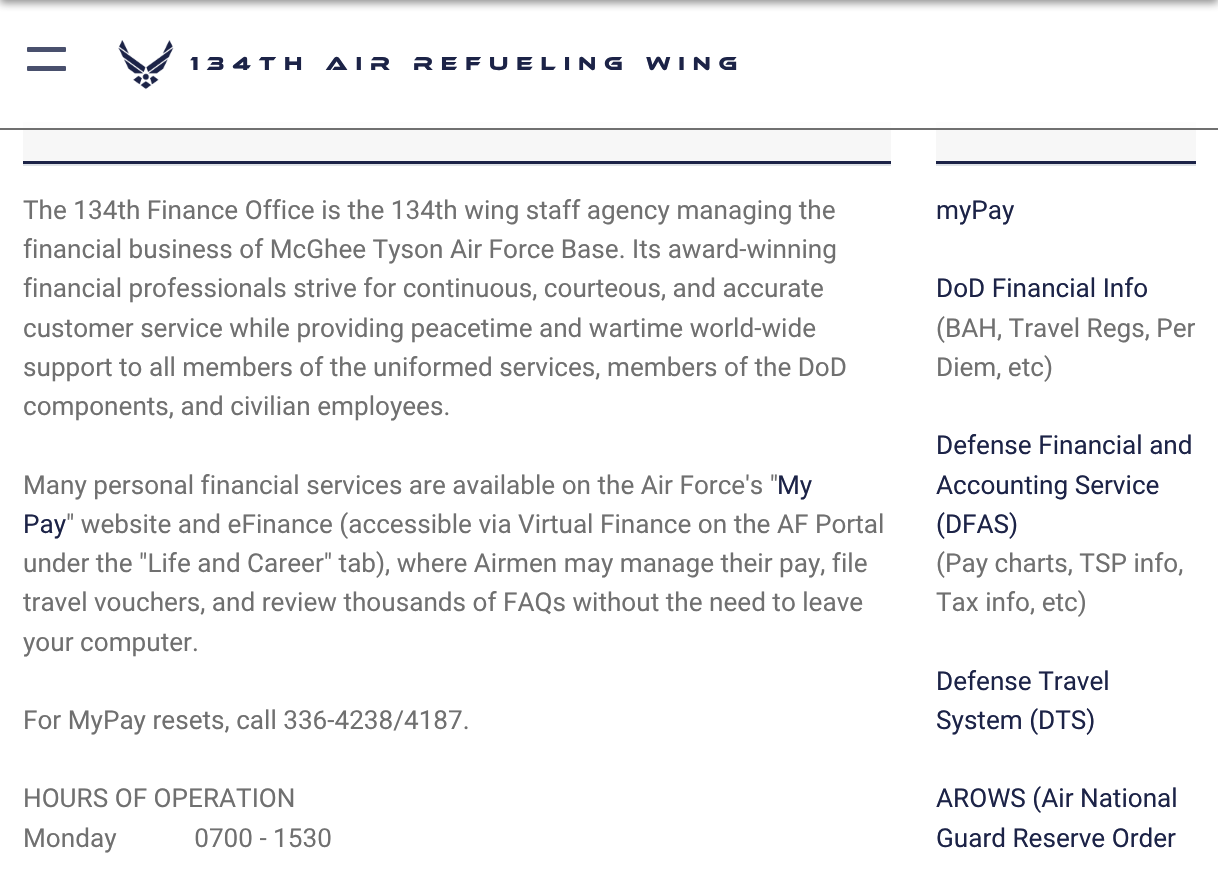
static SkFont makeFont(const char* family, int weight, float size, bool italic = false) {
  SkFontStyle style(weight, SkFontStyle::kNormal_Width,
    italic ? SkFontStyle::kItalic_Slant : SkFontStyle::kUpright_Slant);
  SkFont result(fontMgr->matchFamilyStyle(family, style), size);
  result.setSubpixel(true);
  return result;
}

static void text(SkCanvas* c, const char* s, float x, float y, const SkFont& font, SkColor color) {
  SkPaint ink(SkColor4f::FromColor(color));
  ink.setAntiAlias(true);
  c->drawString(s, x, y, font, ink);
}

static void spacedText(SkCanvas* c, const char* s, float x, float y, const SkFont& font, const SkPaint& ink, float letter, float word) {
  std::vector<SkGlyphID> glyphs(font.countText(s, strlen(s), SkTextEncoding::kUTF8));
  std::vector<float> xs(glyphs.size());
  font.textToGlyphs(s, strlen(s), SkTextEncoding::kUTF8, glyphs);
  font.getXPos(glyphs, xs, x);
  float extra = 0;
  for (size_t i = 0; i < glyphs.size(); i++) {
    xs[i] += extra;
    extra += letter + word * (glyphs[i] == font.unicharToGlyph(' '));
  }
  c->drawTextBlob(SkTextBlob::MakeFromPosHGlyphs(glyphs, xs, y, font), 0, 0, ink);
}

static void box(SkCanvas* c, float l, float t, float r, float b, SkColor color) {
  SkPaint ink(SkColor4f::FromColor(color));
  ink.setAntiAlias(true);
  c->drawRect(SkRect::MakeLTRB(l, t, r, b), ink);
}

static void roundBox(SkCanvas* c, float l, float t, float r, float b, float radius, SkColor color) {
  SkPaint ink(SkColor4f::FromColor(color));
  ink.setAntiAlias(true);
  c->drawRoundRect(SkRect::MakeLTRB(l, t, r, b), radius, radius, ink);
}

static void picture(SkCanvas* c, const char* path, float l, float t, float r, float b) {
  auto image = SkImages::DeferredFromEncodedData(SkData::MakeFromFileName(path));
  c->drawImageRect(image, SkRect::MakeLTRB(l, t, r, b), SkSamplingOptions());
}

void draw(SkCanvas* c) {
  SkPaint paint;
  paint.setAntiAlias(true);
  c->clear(0xffffffff);
  paint.setColor(0x801a1a1a);
  paint.setMaskFilter(SkMaskFilter::MakeBlur(kNormal_SkBlurStyle, 4));
  c->drawRect(SkRect::MakeLTRB(0, -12, 1218, 3), paint);
  paint.setMaskFilter(nullptr);
  {
    const SkColor colors[] = {0xffffffff, 0xffffffff, 0xfff7f7f7, 0xfff7f7f7};
    const float stops[] = {0, 0.35f, 0.35f, 1};
    const SkPoint ends[] = {{457, 99}, {457, 164}};
    paint.setShader(SkGradientShader::MakeLinear(ends, colors, stops, 4, SkTileMode::kClamp));
    paint.setAlpha(255);
  }
  c->drawRect(SkRect::MakeLTRB(23, 122, 891, 161), paint);
  {
    const SkColor colors[] = {0xffffffff, 0xffffffff, 0xfff7f7f7, 0xfff7f7f7};
    const float stops[] = {0, 0.35f, 0.35f, 1};
    const SkPoint ends[] = {{1066, 99}, {1066, 164}};
    paint.setShader(SkGradientShader::MakeLinear(ends, colors, stops, 4, SkTileMode::kClamp));
    paint.setAlpha(255);
  }
  c->drawRect(SkRect::MakeLTRB(936, 122, 1196, 161), paint);
  box(c, 23, 122, 1196, 128, 0xbfffffff);
  box(c, 0, 128, 1218, 130, 0xff707070);
  roundBox(c, 27, 47, 66, 52, 1, 0xff49506d);
  roundBox(c, 27, 66, 66, 71, 1, 0xff49506d);
  picture(c, "img_01.png", 118, 40, 174, 90);
  SkFont face1 = makeFont("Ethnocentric", 400, 19.5f);
  paint.setShader(nullptr);
  paint.setColor(0xff1c2347);
  spacedText(c, "134th Air Refueling Wing", 190, 70, face1, paint, 7.85f, 0);
  box(c, 23, 164, 891, 166, 0xffdee2e6);
  box(c, 23, 161, 891, 164, 0xff1c2347);
  SkFont face2 = makeFont("Roboto", 400, 26.15f);
  text(c, "The 134th Finance Office is the 134th wing staff agency managing the", 23, 219, face2, 0xff707070);
  text(c, "financial business of McGhee Tyson Air Force Base. Its award-winning", 23, 258, face2, 0xff707070);
  text(c, "financial professionals strive for continuous, courteous, and accurate", 23, 297, face2, 0xff707070);
  text(c, "customer service while providing peacetime and wartime world-wide", 23, 337, face2, 0xff707070);
  text(c, "support to all members of the uniformed services, members of the DoD", 23, 376, face2, 0xff707070);
  text(c, "components, and civilian employees.", 23, 415, face2, 0xff707070);
  text(c, "Many personal financial services are available on the Air Force's \"", 23, 494, face2, 0xff707070);
  text(c, "My", 777, 494, face2, 0xff1c2347);
  text(c, "Pay", 23, 533, face2, 0xff1c2347);
  text(c, "\" website and eFinance (accessible via Virtual Finance on the AF Portal", 66, 533, face2, 0xff707070);
  text(c, "under the \"Life and Career\" tab), where Airmen may manage their pay, file", 23, 572, face2, 0xff707070);
  text(c, "travel vouchers, and review thousands of FAQs without the need to leave", 23, 611, face2, 0xff707070);
  text(c, "your computer.", 23, 651, face2, 0xff707070);
  text(c, "For MyPay resets, call 336-4238/4187.", 23, 729, face2, 0xff707070);
  text(c, "HOURS OF OPERATION", 23, 807, face2, 0xff707070);
  text(c, "Monday            0700 - 1530", 23, 847, face2, 0xff707070);
  box(c, 936, 164, 1196, 166, 0xffdee2e6);
  box(c, 936, 161, 1196, 164, 0xff1c2347);
  text(c, "myPay", 936, 219, face2, 0xff1c2347);
  text(c, "DoD Financial Info", 936, 297, face2, 0xff1c2347);
  text(c, "(BAH, Travel Regs, Per", 936, 337, face2, 0xff707070);
  text(c, "Diem, etc)", 936, 376, face2, 0xff707070);
  text(c, "Defense Financial and", 936, 454, face2, 0xff1c2347);
  text(c, "Accounting Service", 936, 494, face2, 0xff1c2347);
  text(c, "(DFAS)", 936, 533, face2, 0xff1c2347);
  text(c, "(Pay charts, TSP info,", 936, 572, face2, 0xff707070);
  text(c, "Tax info, etc)", 936, 611, face2, 0xff707070);
  text(c, "Defense Travel", 936, 690, face2, 0xff1c2347);
  text(c, "System (DTS)", 936, 729, face2, 0xff1c2347);
  text(c, "AROWS (Air National", 936, 807, face2, 0xff1c2347);
  text(c, "Guard Reserve Order", 936, 847, face2, 0xff1c2347);
}
